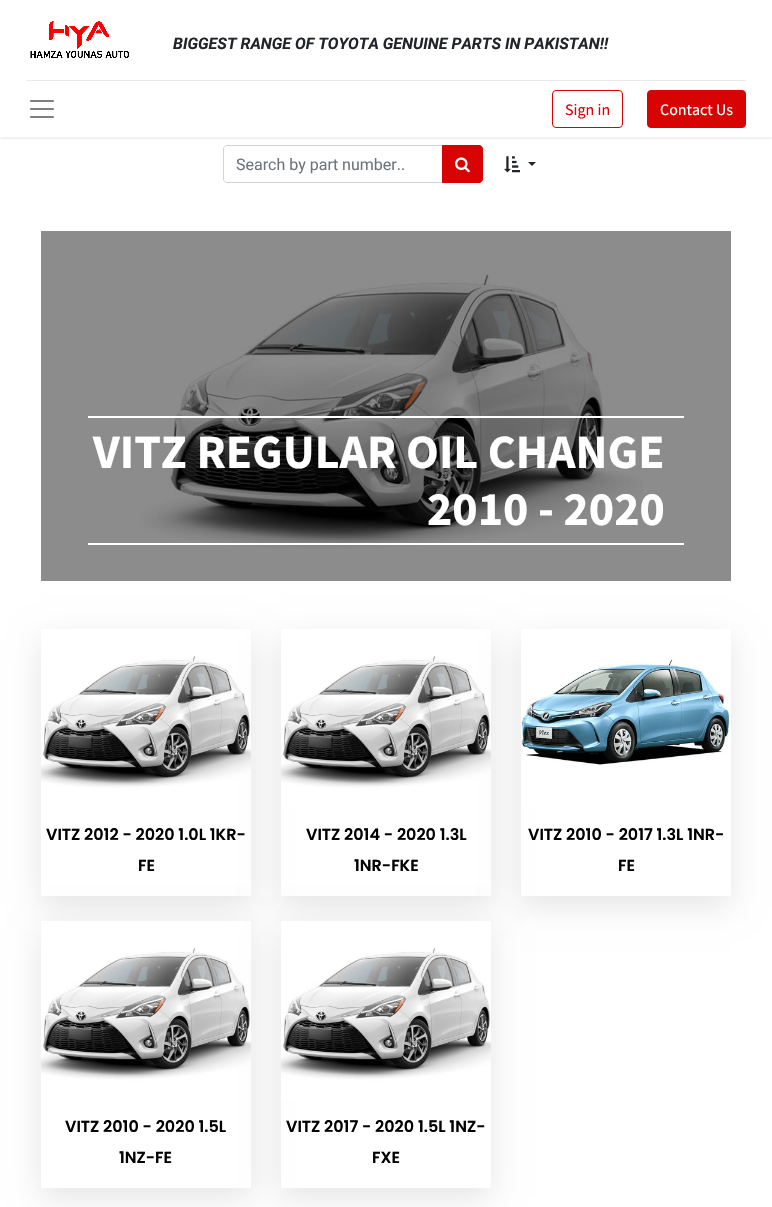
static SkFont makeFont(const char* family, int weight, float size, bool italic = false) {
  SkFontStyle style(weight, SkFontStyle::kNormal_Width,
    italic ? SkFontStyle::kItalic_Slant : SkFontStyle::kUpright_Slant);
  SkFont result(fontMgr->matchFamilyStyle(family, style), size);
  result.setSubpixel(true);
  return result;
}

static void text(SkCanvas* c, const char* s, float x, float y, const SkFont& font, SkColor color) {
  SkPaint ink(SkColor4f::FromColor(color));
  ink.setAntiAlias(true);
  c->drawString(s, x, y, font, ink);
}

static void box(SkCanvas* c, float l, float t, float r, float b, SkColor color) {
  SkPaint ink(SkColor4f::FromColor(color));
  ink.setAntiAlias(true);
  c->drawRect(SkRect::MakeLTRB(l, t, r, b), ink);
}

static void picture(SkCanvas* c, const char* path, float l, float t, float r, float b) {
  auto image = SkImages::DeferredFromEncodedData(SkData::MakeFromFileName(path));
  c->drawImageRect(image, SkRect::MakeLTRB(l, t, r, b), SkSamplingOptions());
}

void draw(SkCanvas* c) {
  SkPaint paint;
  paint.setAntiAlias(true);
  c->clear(0xffffffff);
  box(c, 41, 231, 731, 581, 0xff8c8c8c);
  paint.setStyle(SkPaint::kStroke_Style);
  paint.setStrokeWidth(1);
  paint.setColor(0xffced4da);
  c->drawPath(SkPathBuilder().moveTo(227, 145.5f).lineTo(442.5f, 145.5f).lineTo(442.5f, 182.5f).lineTo(227, 182.5f).cubicTo(225, 182.5f, 223.5f, 181, 223.5f, 179).lineTo(223.5f, 149).cubicTo(223.5f, 147, 225, 145.5f, 227, 145.5f).close().detach(), paint);
  paint.setStyle(SkPaint::kFill_Style);
  paint.setColor(0xffd80303);
  c->drawPath(SkPathBuilder().moveTo(442.5f, 145.5f).lineTo(479, 145.5f).cubicTo(481, 145.5f, 482.5f, 147, 482.5f, 149).lineTo(482.5f, 179).cubicTo(482.5f, 181, 481, 182.5f, 479, 182.5f).lineTo(442.5f, 182.5f).close().detach(), paint);
  paint.setStyle(SkPaint::kStroke_Style);
  c->drawPath(SkPathBuilder().moveTo(442.5f, 145.5f).lineTo(479, 145.5f).cubicTo(481, 145.5f, 482.5f, 147, 482.5f, 149).lineTo(482.5f, 179).cubicTo(482.5f, 181, 481, 182.5f, 479, 182.5f).lineTo(442.5f, 182.5f).close().detach(), paint);
  c->save();
  c->clipRect(SkRect::MakeLTRB(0, 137, 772, 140));
  paint.setStyle(SkPaint::kFill_Style);
  paint.setColor(0x12000000);
  paint.setMaskFilter(SkMaskFilter::MakeBlur(kNormal_SkBlurStyle, 2));
  c->drawRect(SkRect::MakeLTRB(0, 2, 772, 139), paint);
  paint.setMaskFilter(nullptr);
  c->restore();
  picture(c, "img_01.png", 30, 21, 129, 58);
  SkFont face1 = makeFont("Roboto", 700, 16, true);
  text(c, "BIGGEST RANGE OF TOYOTA GENUINE PARTS IN PAKISTAN!!", 173, 49, face1, 0xff212529);
  box(c, 26, 80, 746, 81, 0xffe9ecef);
  picture(c, "img_02.png", 30, 100, 54, 118);
  paint.setStyle(SkPaint::kStroke_Style);
  paint.setColor(0xffd80303);
  c->drawRoundRect(SkRect::MakeLTRB(552.5f, 90.5f, 622.5f, 127.5f), 3.5f, 3.5f, paint);
  SkFont face2 = makeFont("Source Sans Pro", 400, 16);
  text(c, "Sign in", 565, 115, face2, 0xffd80303);
  paint.setStyle(SkPaint::kFill_Style);
  c->drawRoundRect(SkRect::MakeLTRB(647.5f, 90.5f, 745.5f, 127.5f), 3.5f, 3.5f, paint);
  paint.setStyle(SkPaint::kStroke_Style);
  c->drawRoundRect(SkRect::MakeLTRB(647.5f, 90.5f, 745.5f, 127.5f), 3.5f, 3.5f, paint);
  text(c, "Contact Us", 660, 115, face2, 0xffffffff);
  SkFont face3 = makeFont("Roboto", 400, 16);
  text(c, "Search by part number..", 236, 170, face3, 0xff6c757d);
  picture(c, "img_03.png", 455, 157, 470, 173);
  picture(c, "img_04.png", 504, 156, 520, 173);
  paint.setStyle(SkPaint::kFill_Style);
  paint.setColor(0xff212529);
  c->drawPath(SkPathBuilder().moveTo(528, 162).lineTo(536, 162).lineTo(532, 166).close().detach(), paint);
  picture(c, "img_05.png", 140, 274, 643, 549);
  box(c, 88, 416, 684, 418, 0xffffffff);
  SkFont face4 = makeFont("Source Sans Pro", 700, 48);
  text(c, "VITZ REGULAR OIL CHANGE", 93, 468, face4, 0xffffffff);
  text(c, "2010 - 2020", 427, 525, face4, 0xffffffff);
  box(c, 88, 543, 684, 545, 0xffffffff);
  c->save();
  c->clipPath(SkPathBuilder(SkPathFillType::kEvenOdd).moveTo(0, 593).lineTo(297, 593).lineTo(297, 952).lineTo(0, 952).close().moveTo(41, 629).lineTo(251, 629).lineTo(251, 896).lineTo(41, 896).close().detach(), true);
  paint.setColor(0x1a000000);
  paint.setMaskFilter(SkMaskFilter::MakeBlur(kNormal_SkBlurStyle, 15));
  c->drawRect(SkRect::MakeLTRB(41, 639, 251, 906), paint);
  paint.setMaskFilter(nullptr);
  c->restore();
  picture(c, "img_06.png", 41, 629, 251, 809);
  SkFont face5 = makeFont("Poppins", 600, 16);
  text(c, "VITZ 2012 - 2020 1.0L 1KR-", 46, 840, face5, 0xff000000);
  text(c, "FE", 138, 871, face5, 0xff000000);
  c->save();
  c->clipPath(SkPathBuilder(SkPathFillType::kEvenOdd).moveTo(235, 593).lineTo(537, 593).lineTo(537, 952).lineTo(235, 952).close().moveTo(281, 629).lineTo(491, 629).lineTo(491, 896).lineTo(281, 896).close().detach(), true);
  paint.setMaskFilter(SkMaskFilter::MakeBlur(kNormal_SkBlurStyle, 15));
  c->drawRect(SkRect::MakeLTRB(281, 639, 491, 906), paint);
  paint.setMaskFilter(nullptr);
  c->restore();
  picture(c, "img_07.png", 281, 629, 491, 809);
  text(c, "VITZ 2014 - 2020 1.3L", 306, 840, face5, 0xff000000);
  text(c, "1NR-FKE", 354, 871, face5, 0xff000000);
  c->save();
  c->clipPath(SkPathBuilder(SkPathFillType::kEvenOdd).moveTo(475, 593).lineTo(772, 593).lineTo(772, 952).lineTo(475, 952).close().moveTo(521, 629).lineTo(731, 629).lineTo(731, 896).lineTo(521, 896).close().detach(), true);
  paint.setMaskFilter(SkMaskFilter::MakeBlur(kNormal_SkBlurStyle, 15));
  c->drawRect(SkRect::MakeLTRB(521, 639, 731, 906), paint);
  paint.setMaskFilter(nullptr);
  c->restore();
  picture(c, "img_08.png", 521, 629, 731, 809);
  text(c, "VITZ 2010 - 2017 1.3L 1NR-", 528, 840, face5, 0xff000000);
  text(c, "FE", 618, 871, face5, 0xff000000);
  c->save();
  c->clipPath(SkPathBuilder(SkPathFillType::kEvenOdd).moveTo(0, 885).lineTo(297, 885).lineTo(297, 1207).lineTo(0, 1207).close().moveTo(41, 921).lineTo(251, 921).lineTo(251, 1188).lineTo(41, 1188).close().detach(), true);
  paint.setMaskFilter(SkMaskFilter::MakeBlur(kNormal_SkBlurStyle, 15));
  c->drawRect(SkRect::MakeLTRB(41, 931, 251, 1198), paint);
  paint.setMaskFilter(nullptr);
  c->restore();
  picture(c, "img_09.png", 41, 921, 251, 1101);
  text(c, "VITZ 2010 - 2020 1.5L", 65, 1132, face5, 0xff000000);
  text(c, "1NZ-FE", 119, 1163, face5, 0xff000000);
  c->save();
  c->clipPath(SkPathBuilder(SkPathFillType::kEvenOdd).moveTo(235, 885).lineTo(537, 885).lineTo(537, 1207).lineTo(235, 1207).close().moveTo(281, 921).lineTo(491, 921).lineTo(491, 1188).lineTo(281, 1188).close().detach(), true);
  paint.setMaskFilter(SkMaskFilter::MakeBlur(kNormal_SkBlurStyle, 15));
  c->drawRect(SkRect::MakeLTRB(281, 931, 491, 1198), paint);
  paint.setMaskFilter(nullptr);
  c->restore();
  picture(c, "img_10.png", 281, 921, 491, 1101);
  text(c, "VITZ 2017 - 2020 1.5L 1NZ-", 286, 1132, face5, 0xff000000);
  text(c, "FXE", 372, 1163, face5, 0xff000000);
}
